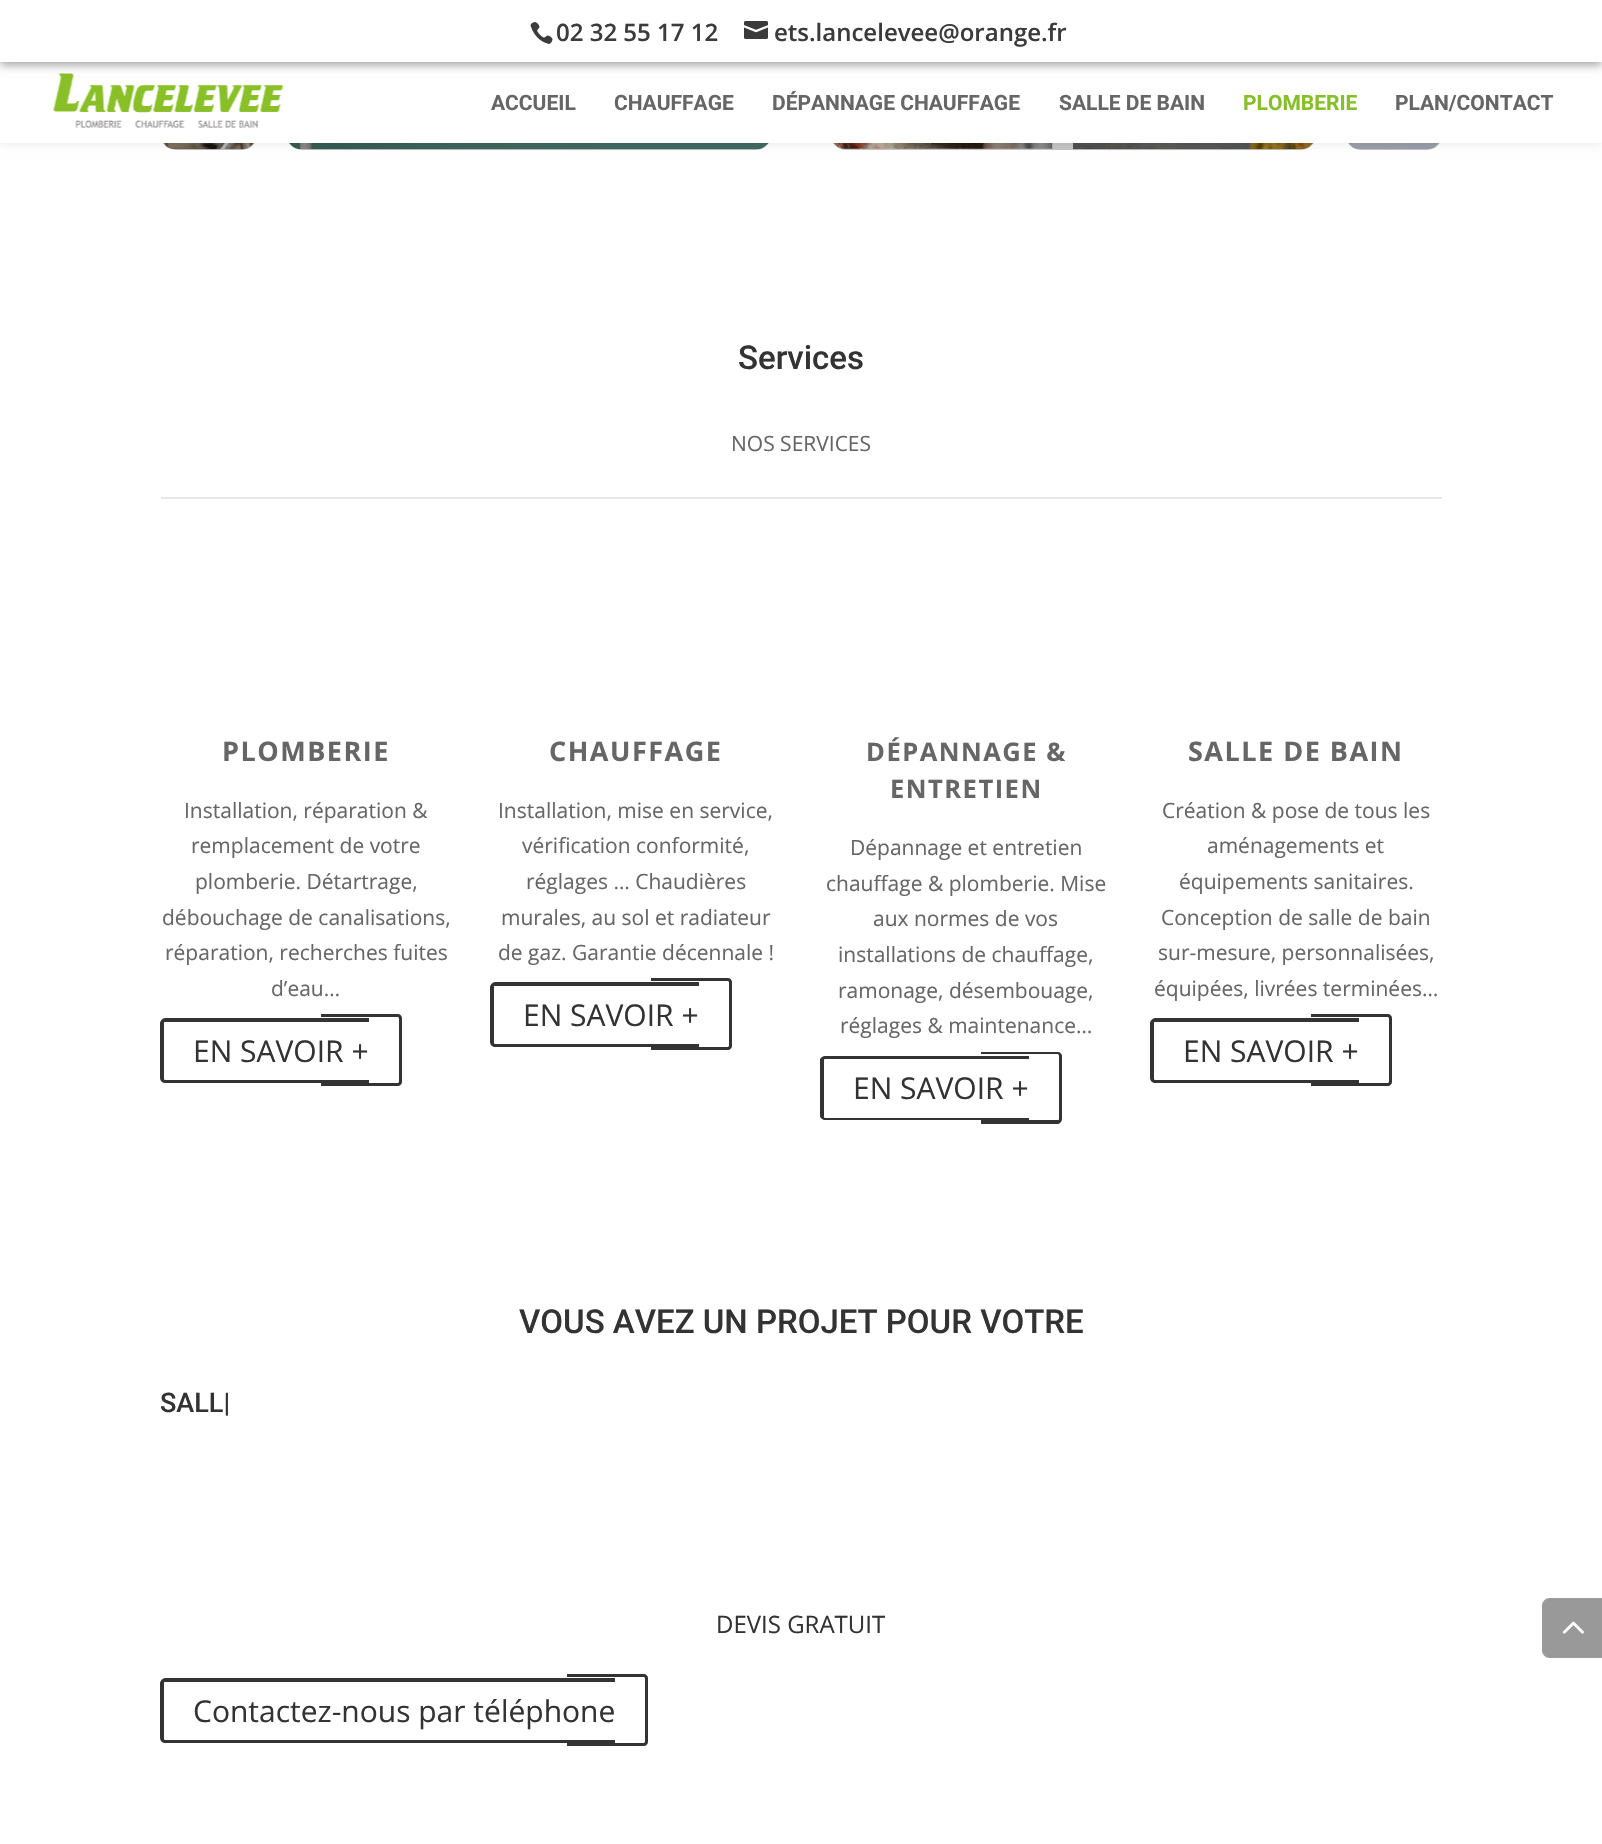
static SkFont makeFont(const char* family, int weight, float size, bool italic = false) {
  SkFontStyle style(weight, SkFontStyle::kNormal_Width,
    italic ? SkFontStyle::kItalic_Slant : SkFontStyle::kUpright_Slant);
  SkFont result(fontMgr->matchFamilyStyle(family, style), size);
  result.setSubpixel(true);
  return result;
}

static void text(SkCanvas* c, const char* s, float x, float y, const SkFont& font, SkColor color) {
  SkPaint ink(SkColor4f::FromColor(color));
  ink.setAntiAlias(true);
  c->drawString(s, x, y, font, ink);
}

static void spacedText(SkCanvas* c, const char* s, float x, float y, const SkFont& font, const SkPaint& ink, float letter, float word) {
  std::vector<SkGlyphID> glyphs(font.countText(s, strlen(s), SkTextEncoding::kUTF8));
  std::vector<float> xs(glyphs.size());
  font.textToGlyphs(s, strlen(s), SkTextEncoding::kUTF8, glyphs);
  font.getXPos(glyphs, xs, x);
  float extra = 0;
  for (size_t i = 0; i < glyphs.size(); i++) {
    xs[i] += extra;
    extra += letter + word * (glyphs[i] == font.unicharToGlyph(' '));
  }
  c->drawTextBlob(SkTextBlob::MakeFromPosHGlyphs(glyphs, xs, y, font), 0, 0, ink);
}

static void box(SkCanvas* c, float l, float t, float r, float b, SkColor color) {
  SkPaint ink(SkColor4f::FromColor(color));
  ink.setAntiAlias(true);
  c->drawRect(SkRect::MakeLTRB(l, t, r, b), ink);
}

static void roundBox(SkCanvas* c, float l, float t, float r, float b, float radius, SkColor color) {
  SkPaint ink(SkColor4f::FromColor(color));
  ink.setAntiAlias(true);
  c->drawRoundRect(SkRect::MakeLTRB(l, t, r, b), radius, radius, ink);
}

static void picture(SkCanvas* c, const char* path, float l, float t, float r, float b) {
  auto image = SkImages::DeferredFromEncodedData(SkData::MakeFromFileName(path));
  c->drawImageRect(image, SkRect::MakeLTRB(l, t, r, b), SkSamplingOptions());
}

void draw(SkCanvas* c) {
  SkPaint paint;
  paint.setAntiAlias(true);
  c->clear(0xffffffff);
  picture(c, "img_04.png", 163, 143, 254, 150);
  roundBox(c, 161, -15, 257, 150, 15, 0x3b000000);
  picture(c, "img_05.png", 289, 143, 769, 150);
  roundBox(c, 287, -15, 771, 150, 15, 0x3b000000);
  picture(c, "img_06.png", 833, 143, 1313, 150);
  roundBox(c, 831, -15, 1316, 150, 15, 0x3b000000);
  picture(c, "img_07.png", 1348, 143, 1439, 150);
  roundBox(c, 1346, -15, 1442, 150, 15, 0x3b000000);
  paint.setColor(0x1a000000);
  paint.setMaskFilter(SkMaskFilter::MakeBlur(kNormal_SkBlurStyle, 5));
  c->drawRect(SkRect::MakeLTRB(0, 62, 1602, 143), paint);
  paint.setMaskFilter(nullptr);
  box(c, 0, 62, 1602, 143, 0xffffffff);
  picture(c, "img_03.png", 53, 73, 284, 128);
  paint.setColor(0x5e000000);
  paint.setMaskFilter(SkMaskFilter::MakeBlur(kNormal_SkBlurStyle, 4.5f));
  c->drawRect(SkRect::MakeLTRB(0, 3, 1602, 65), paint);
  paint.setMaskFilter(nullptr);
  box(c, 0, 0, 1602, 62, 0xffffffff);
  picture(c, "img_01.png", 530, 22, 553, 44);
  SkFont face1 = makeFont("Open Sans", 600, 24);
  text(c, "02 32 55 17 12", 556, 41, face1, 0xff3b3b3b);
  picture(c, "img_02.png", 744, 21, 768, 39);
  text(c, "ets.lancelevee@orange.fr", 774, 41, face1, 0xff3b3b3b);
  SkFont face2 = makeFont("Roboto", 700, 21);
  text(c, "ACCUEIL", 491, 110, face2, 0xff666666);
  text(c, "CHAUFFAGE", 614, 110, face2, 0xff666666);
  text(c, "DÉPANNAGE CHAUFFAGE", 772, 110, face2, 0xff666666);
  text(c, "SALLE DE BAIN", 1059, 110, face2, 0xff666666);
  text(c, "PLOMBERIE", 1243, 110, face2, 0xff87bf28);
  text(c, "PLAN/CONTACT", 1395, 110, face2, 0xff666666);
  SkFont face3 = makeFont("Roboto", 500, 33);
  text(c, "Services", 738, 369, face3, 0xff333333);
  SkFont face4 = makeFont("Open Sans", 400, 21);
  text(c, "NOS SERVICES", 731, 451, face4, 0xff666666);
  box(c, 161, 497, 1442, 499, 0xffe6e6e6);
  SkFont face5 = makeFont("Open Sans", 700, 27);
  paint.setColor(0xff666666);
  spacedText(c, "PLOMBERIE", 222, 761, face5, paint, 1.5f, 0);
  text(c, "Installation, réparation &", 184, 818, face4, 0xff666666);
  text(c, "remplacement de votre", 191, 853, face4, 0xff666666);
  text(c, "plomberie. Détartrage,", 195, 889, face4, 0xff666666);
  text(c, "débouchage de canalisations,", 162, 925, face4, 0xff666666);
  text(c, "réparation, recherches fuites", 165, 960, face4, 0xff666666);
  text(c, "d’eau…", 271, 996, face4, 0xff666666);
  paint.setColor(0xff333333);
  c->drawPath(SkPathBuilder(SkPathFillType::kEvenOdd).moveTo(165, 1018).lineTo(369, 1018).lineTo(369, 1083).lineTo(165, 1083).cubicTo(163, 1083, 160, 1081, 160, 1078).lineTo(160, 1023).cubicTo(160, 1021, 163, 1018, 165, 1018).close().moveTo(165, 1022).lineTo(369, 1022).lineTo(369, 1080).lineTo(165, 1080).cubicTo(164, 1080, 164, 1079, 164, 1078).lineTo(164, 1023).cubicTo(164, 1022, 164, 1022, 165, 1022).close().detach(), paint);
  c->drawPath(SkPathBuilder(SkPathFillType::kEvenOdd).moveTo(321, 1014).lineTo(398, 1014).cubicTo(400, 1014, 402, 1016, 402, 1018).lineTo(402, 1082).cubicTo(402, 1084, 400, 1086, 398, 1086).lineTo(321, 1086).close().moveTo(321, 1017).lineTo(398, 1017).cubicTo(398, 1017, 399, 1018, 399, 1018).lineTo(399, 1082).cubicTo(399, 1082, 398, 1083, 398, 1083).lineTo(321, 1083).close().detach(), paint);
  SkFont face6 = makeFont("Open Sans", 400, 30);
  text(c, "EN SAVOIR +", 193, 1062, face6, 0xff333333);
  paint.setColor(0xff666666);
  spacedText(c, "CHAUFFAGE", 549, 761, face5, paint, 1.5f, 0);
  text(c, "Installation, mise en service,", 498, 818, face4, 0xff666666);
  text(c, "vérification conformité,", 522, 853, face4, 0xff666666);
  text(c, "réglages … Chaudières", 526, 889, face4, 0xff666666);
  text(c, "murales, au sol et radiateur", 501, 925, face4, 0xff666666);
  text(c, "de gaz. Garantie décennale !", 498, 960, face4, 0xff666666);
  paint.setColor(0xff333333);
  c->drawPath(SkPathBuilder(SkPathFillType::kEvenOdd).moveTo(495, 982).lineTo(699, 982).lineTo(699, 1047).lineTo(495, 1047).cubicTo(493, 1047, 490, 1045, 490, 1042).lineTo(490, 987).cubicTo(490, 985, 493, 982, 495, 982).close().moveTo(495, 986).lineTo(699, 986).lineTo(699, 1044).lineTo(495, 1044).cubicTo(494, 1044, 494, 1043, 494, 1042).lineTo(494, 987).cubicTo(494, 986, 494, 986, 495, 986).close().detach(), paint);
  c->drawPath(SkPathBuilder(SkPathFillType::kEvenOdd).moveTo(651, 978).lineTo(728, 978).cubicTo(730, 978, 732, 980, 732, 982).lineTo(732, 1046).cubicTo(732, 1048, 730, 1050, 728, 1050).lineTo(651, 1050).close().moveTo(651, 981).lineTo(728, 981).cubicTo(728, 981, 729, 982, 729, 982).lineTo(729, 1046).cubicTo(729, 1046, 728, 1047, 728, 1047).lineTo(651, 1047).close().detach(), paint);
  text(c, "EN SAVOIR +", 523, 1026, face6, 0xff333333);
  SkFont face7 = makeFont("Open Sans", 700, 25.5f);
  paint.setColor(0xff666666);
  spacedText(c, "DÉPANNAGE &", 866, 761, face7, paint, 1.5f, 0);
  spacedText(c, "ENTRETIEN", 890, 798, face7, paint, 1.5f, 0);
  text(c, "Dépannage et entretien", 850, 855, face4, 0xff666666);
  text(c, "chauffage & plomberie. Mise", 826, 891, face4, 0xff666666);
  text(c, "aux normes de vos", 873, 926, face4, 0xff666666);
  text(c, "installations de chauffage,", 838, 962, face4, 0xff666666);
  text(c, "ramonage, désembouage,", 838, 998, face4, 0xff666666);
  text(c, "réglages & maintenance…", 840, 1033, face4, 0xff666666);
  paint.setColor(0xff333333);
  c->drawPath(SkPathBuilder(SkPathFillType::kEvenOdd).moveTo(825, 1056).lineTo(1029, 1056).lineTo(1029, 1120).lineTo(825, 1120).cubicTo(823, 1120, 820, 1118, 820, 1116).lineTo(820, 1060).cubicTo(820, 1058, 823, 1056, 825, 1056).close().moveTo(825, 1059).lineTo(1029, 1059).lineTo(1029, 1118).lineTo(825, 1118).cubicTo(824, 1118, 824, 1117, 824, 1116).lineTo(824, 1060).cubicTo(824, 1060, 824, 1059, 825, 1059).close().detach(), paint);
  c->drawPath(SkPathBuilder(SkPathFillType::kEvenOdd).moveTo(981, 1052).lineTo(1058, 1052).cubicTo(1060, 1052, 1062, 1054, 1062, 1056).lineTo(1062, 1119).cubicTo(1062, 1121, 1060, 1124, 1058, 1124).lineTo(981, 1124).close().moveTo(981, 1054).lineTo(1058, 1054).cubicTo(1058, 1054, 1059, 1055, 1059, 1056).lineTo(1059, 1119).cubicTo(1059, 1120, 1058, 1120, 1058, 1120).lineTo(981, 1120).close().detach(), paint);
  text(c, "EN SAVOIR +", 853, 1099, face6, 0xff333333);
  paint.setColor(0xff666666);
  spacedText(c, "SALLE DE BAIN", 1188, 761, face5, paint, 1.5f, 0);
  text(c, "Création & pose de tous les", 1162, 818, face4, 0xff666666);
  text(c, "aménagements et", 1207, 853, face4, 0xff666666);
  text(c, "équipements sanitaires.", 1179, 889, face4, 0xff666666);
  text(c, "Conception de salle de bain", 1161, 925, face4, 0xff666666);
  text(c, "sur-mesure, personnalisées,", 1158, 960, face4, 0xff666666);
  text(c, "équipées, livrées terminées…", 1154, 996, face4, 0xff666666);
  paint.setColor(0xff333333);
  c->drawPath(SkPathBuilder(SkPathFillType::kEvenOdd).moveTo(1155, 1018).lineTo(1359, 1018).lineTo(1359, 1083).lineTo(1155, 1083).cubicTo(1153, 1083, 1150, 1081, 1150, 1078).lineTo(1150, 1023).cubicTo(1150, 1021, 1153, 1018, 1155, 1018).close().moveTo(1155, 1022).lineTo(1359, 1022).lineTo(1359, 1080).lineTo(1155, 1080).cubicTo(1154, 1080, 1154, 1079, 1154, 1078).lineTo(1154, 1023).cubicTo(1154, 1022, 1154, 1022, 1155, 1022).close().detach(), paint);
  c->drawPath(SkPathBuilder(SkPathFillType::kEvenOdd).moveTo(1311, 1014).lineTo(1388, 1014).cubicTo(1390, 1014, 1392, 1016, 1392, 1018).lineTo(1392, 1082).cubicTo(1392, 1084, 1390, 1086, 1388, 1086).lineTo(1311, 1086).close().moveTo(1311, 1017).lineTo(1388, 1017).cubicTo(1388, 1017, 1389, 1018, 1389, 1018).lineTo(1389, 1082).cubicTo(1389, 1082, 1388, 1083, 1388, 1083).lineTo(1311, 1083).close().detach(), paint);
  text(c, "EN SAVOIR +", 1183, 1062, face6, 0xff333333);
  text(c, "VOUS AVEZ UN PROJET POUR VOTRE", 519, 1333, face3, 0xff333333);
  SkFont face8 = makeFont("Roboto", 500, 27);
  text(c, "SALL|", 160, 1412, face8, 0xff333333);
  SkFont face9 = makeFont("Open Sans", 400, 24);
  text(c, "DEVIS GRATUIT", 716, 1633, face9, 0xff333333);
  c->drawPath(SkPathBuilder(SkPathFillType::kEvenOdd).moveTo(165, 1678).lineTo(615, 1678).lineTo(615, 1743).lineTo(165, 1743).cubicTo(163, 1743, 160, 1741, 160, 1738).lineTo(160, 1683).cubicTo(160, 1681, 163, 1678, 165, 1678).close().moveTo(165, 1682).lineTo(615, 1682).lineTo(615, 1740).lineTo(165, 1740).cubicTo(164, 1740, 164, 1739, 164, 1738).lineTo(164, 1683).cubicTo(164, 1682, 164, 1682, 165, 1682).close().detach(), paint);
  c->drawPath(SkPathBuilder(SkPathFillType::kEvenOdd).moveTo(567, 1674).lineTo(644, 1674).cubicTo(646, 1674, 648, 1676, 648, 1678).lineTo(648, 1742).cubicTo(648, 1744, 646, 1746, 644, 1746).lineTo(567, 1746).close().moveTo(567, 1677).lineTo(644, 1677).cubicTo(644, 1677, 645, 1678, 645, 1678).lineTo(645, 1742).cubicTo(645, 1742, 644, 1743, 644, 1743).lineTo(567, 1743).close().detach(), paint);
  text(c, "Contactez-nous par téléphone", 193, 1722, face6, 0xff333333);
  paint.setColor(0xff999999);
  c->drawPath(SkPathBuilder().moveTo(1550, 1598).lineTo(1602, 1598).lineTo(1602, 1658).lineTo(1550, 1658).cubicTo(1545.5f, 1658, 1542, 1654.5f, 1542, 1650).lineTo(1542, 1606).cubicTo(1542, 1601.5f, 1545.5f, 1598, 1550, 1598).close().detach(), paint);
  picture(c, "img_08.png", 1562, 1621, 1584, 1634);
}
